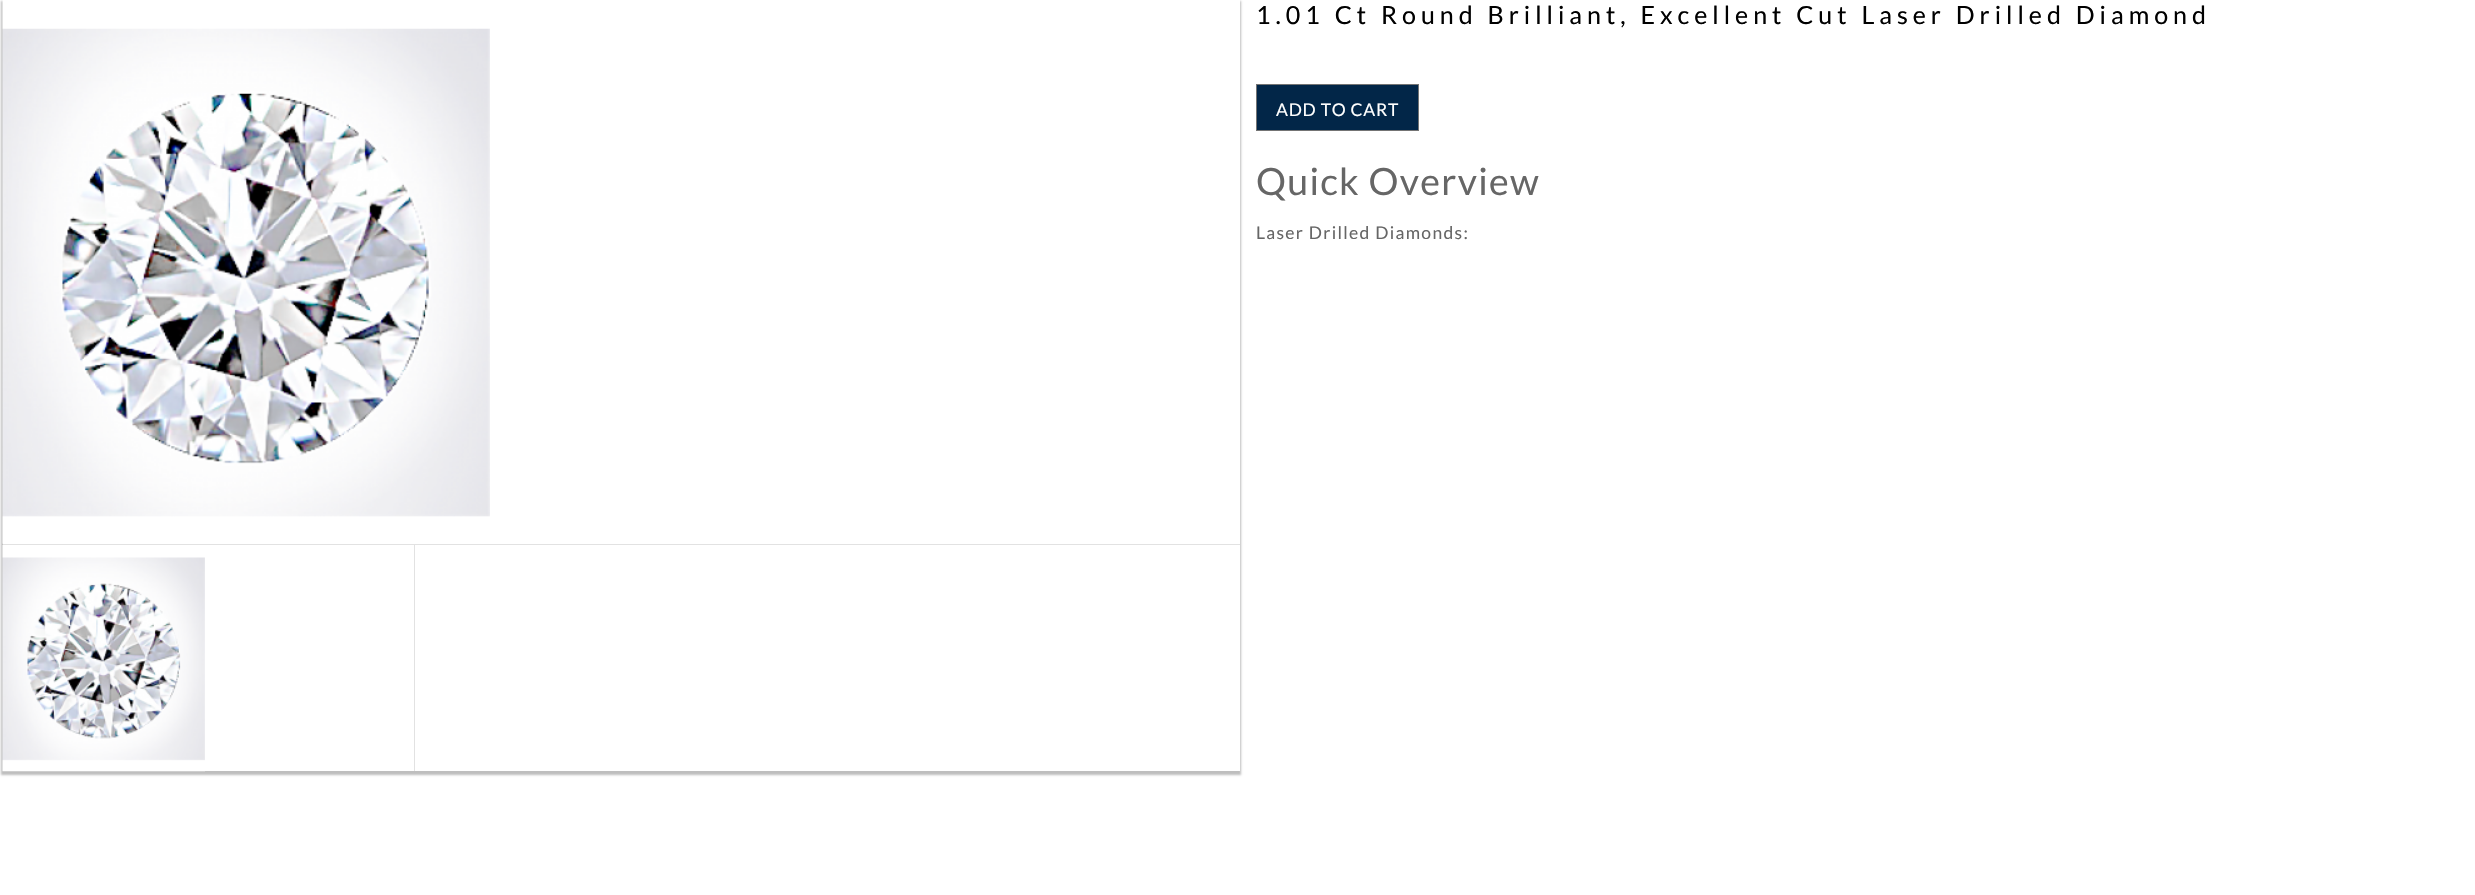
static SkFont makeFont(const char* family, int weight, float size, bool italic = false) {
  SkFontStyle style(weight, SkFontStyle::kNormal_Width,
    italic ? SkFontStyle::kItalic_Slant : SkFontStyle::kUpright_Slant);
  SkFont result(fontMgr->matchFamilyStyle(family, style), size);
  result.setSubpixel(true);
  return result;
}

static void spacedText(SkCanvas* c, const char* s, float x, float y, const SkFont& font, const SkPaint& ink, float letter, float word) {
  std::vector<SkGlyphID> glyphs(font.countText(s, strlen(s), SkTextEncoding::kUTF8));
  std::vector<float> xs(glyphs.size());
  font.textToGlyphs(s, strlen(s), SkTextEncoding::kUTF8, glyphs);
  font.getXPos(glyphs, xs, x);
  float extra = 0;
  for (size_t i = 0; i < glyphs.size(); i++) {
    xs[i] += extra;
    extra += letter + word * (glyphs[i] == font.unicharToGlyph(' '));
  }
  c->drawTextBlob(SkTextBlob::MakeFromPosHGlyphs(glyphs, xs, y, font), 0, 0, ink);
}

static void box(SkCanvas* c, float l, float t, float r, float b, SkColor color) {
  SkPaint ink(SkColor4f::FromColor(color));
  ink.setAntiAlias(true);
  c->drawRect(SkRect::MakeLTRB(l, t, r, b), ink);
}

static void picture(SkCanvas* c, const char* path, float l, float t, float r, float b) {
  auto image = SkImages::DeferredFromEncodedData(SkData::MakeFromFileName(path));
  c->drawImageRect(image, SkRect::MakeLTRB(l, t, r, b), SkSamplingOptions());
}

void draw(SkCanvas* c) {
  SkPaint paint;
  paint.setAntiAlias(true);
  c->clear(0xffffffff);
  c->save();
  c->clipPath(SkPathBuilder(SkPathFillType::kEvenOdd).moveTo(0, 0).lineTo(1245, 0).lineTo(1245, 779).lineTo(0, 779).close().moveTo(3, 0).lineTo(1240, 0).lineTo(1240, 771).lineTo(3, 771).close().detach(), true);
  paint.setColor(0xffbebebe);
  paint.setMaskFilter(SkMaskFilter::MakeBlur(kNormal_SkBlurStyle, 1));
  c->drawRect(SkRect::MakeLTRB(1, 1, 1241, 775), paint);
  paint.setMaskFilter(nullptr);
  c->restore();
  picture(c, "img_01.png", 2, 0, 490, 544);
  box(c, 3, 544, 1240, 545, 0xffe2e2e2);
  box(c, 414, 545, 415, 771, 0xffe2e2e2);
  picture(c, "img_02.png", 2, 545, 205, 772);
  SkFont face1 = makeFont("Lato", 400, 25);
  paint.setColor(0xff000000);
  spacedText(c, "1.01 Ct Round Brilliant, Excellent Cut Laser Drilled Diamond", 1256, 24, face1, paint, 5, 0);
  paint.setColor(0xff022648);
  c->drawRect(SkRect::MakeLTRB(1256.5f, 84.5f, 1418.5f, 130.5f), paint);
  paint.setStyle(SkPaint::kStroke_Style);
  paint.setStrokeWidth(1);
  paint.setColor(0xff747474);
  c->drawRect(SkRect::MakeLTRB(1256.5f, 84.5f, 1418.5f, 130.5f), paint);
  SkFont face2 = makeFont("Lato", 400, 17.5f);
  paint.setStyle(SkPaint::kFill_Style);
  paint.setColor(0xffffffff);
  spacedText(c, "ADD TO CART", 1276, 116, face2, paint, 0.75f, 0);
  SkFont face3 = makeFont("Lato", 400, 37.5f);
  paint.setColor(0xff666666);
  spacedText(c, "Quick Overview", 1256, 195, face3, paint, 1.3f, 0);
  spacedText(c, "Laser Drilled Diamonds:", 1256, 239, face2, paint, 1.3f, 0);
}
